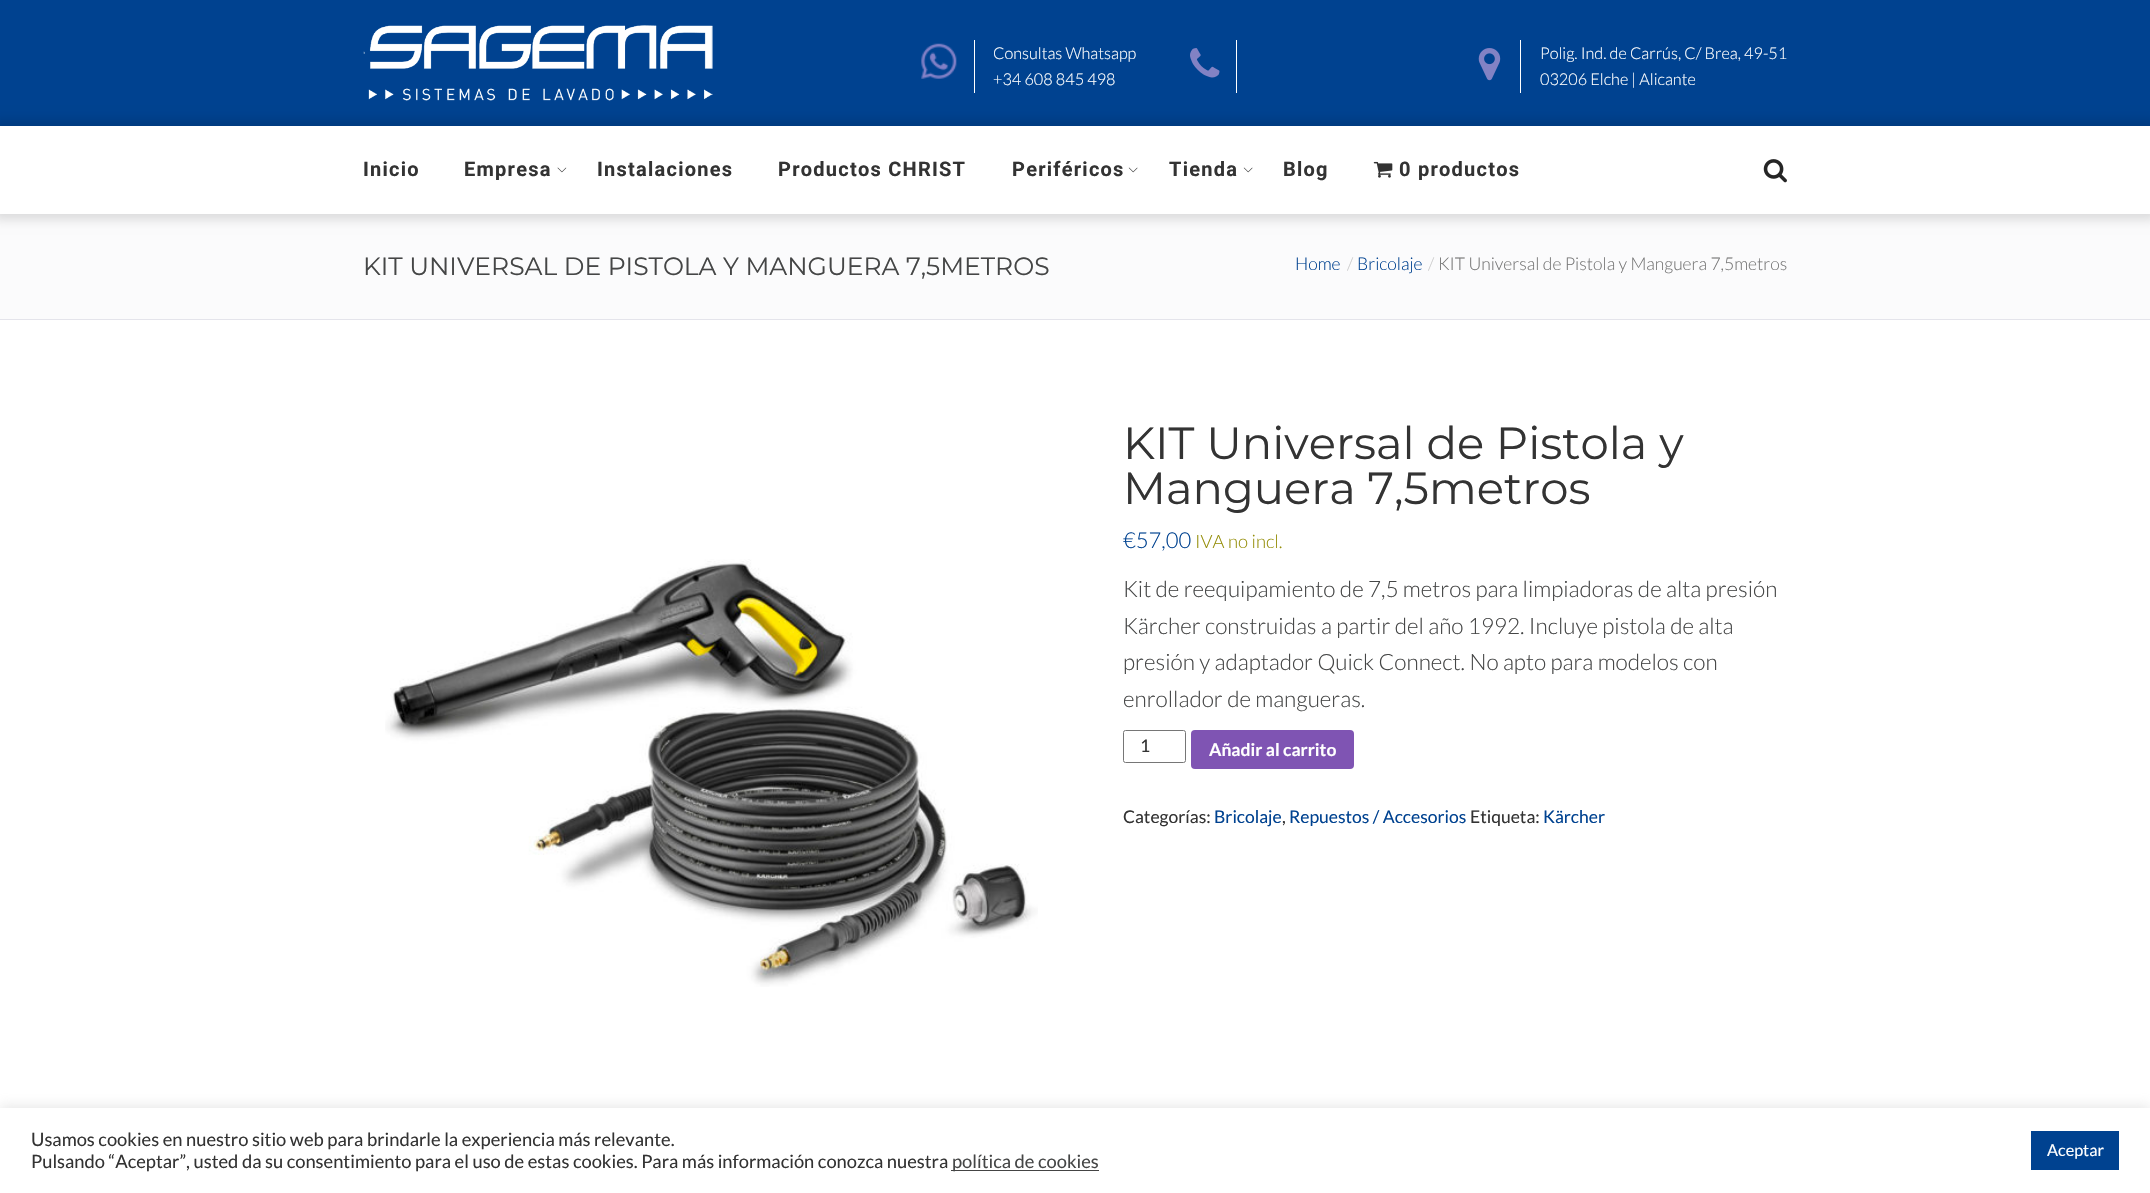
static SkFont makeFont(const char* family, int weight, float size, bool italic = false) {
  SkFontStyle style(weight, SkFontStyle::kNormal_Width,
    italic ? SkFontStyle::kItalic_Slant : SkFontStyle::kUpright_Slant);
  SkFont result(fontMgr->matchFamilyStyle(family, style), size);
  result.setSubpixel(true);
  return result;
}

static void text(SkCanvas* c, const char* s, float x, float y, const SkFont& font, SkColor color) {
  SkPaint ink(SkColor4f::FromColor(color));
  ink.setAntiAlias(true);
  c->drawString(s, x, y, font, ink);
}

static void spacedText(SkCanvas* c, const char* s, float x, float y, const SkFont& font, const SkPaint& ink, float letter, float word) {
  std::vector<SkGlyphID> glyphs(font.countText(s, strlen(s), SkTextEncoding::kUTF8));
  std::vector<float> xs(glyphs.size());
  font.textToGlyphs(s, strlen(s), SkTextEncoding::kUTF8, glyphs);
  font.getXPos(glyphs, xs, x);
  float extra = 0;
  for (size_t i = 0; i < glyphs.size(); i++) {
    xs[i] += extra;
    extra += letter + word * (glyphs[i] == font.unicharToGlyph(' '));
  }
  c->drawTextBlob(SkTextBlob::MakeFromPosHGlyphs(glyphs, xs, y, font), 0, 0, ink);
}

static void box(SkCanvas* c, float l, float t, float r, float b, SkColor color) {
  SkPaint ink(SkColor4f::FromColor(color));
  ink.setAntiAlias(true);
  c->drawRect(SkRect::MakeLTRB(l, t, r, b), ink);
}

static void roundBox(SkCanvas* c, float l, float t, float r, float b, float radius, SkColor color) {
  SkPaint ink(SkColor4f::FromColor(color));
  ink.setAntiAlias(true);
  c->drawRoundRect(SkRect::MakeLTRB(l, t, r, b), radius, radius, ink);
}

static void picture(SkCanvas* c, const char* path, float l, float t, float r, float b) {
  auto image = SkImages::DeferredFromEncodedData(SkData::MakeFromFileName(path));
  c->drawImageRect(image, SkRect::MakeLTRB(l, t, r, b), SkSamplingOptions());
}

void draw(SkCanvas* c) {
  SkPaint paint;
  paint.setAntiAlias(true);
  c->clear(0xffffffff);
  box(c, 0, 0, 2150, 126, 0xff004290);
  picture(c, "img_01.png", 363, 25, 713, 101);
  picture(c, "img_02.png", 921, 43, 957, 79);
  box(c, 974, 40, 975, 93, 0xffffffff);
  SkFont face1 = makeFont("Lato", 300, 16.25f);
  text(c, "Consultas Whatsapp", 993, 59, face1, 0xffffffff);
  text(c, "+34 608 845 498", 993, 85, face1, 0xffffffff);
  picture(c, "img_03.png", 1190, 48, 1220, 78);
  box(c, 1236, 40, 1237, 93, 0xffffffff);
  picture(c, "img_04.png", 1478, 48, 1501, 81);
  box(c, 1520, 40, 1521, 93, 0xffffffff);
  text(c, "Polig. Ind. de Carrús, C/ Brea, 49-51", 1540, 59, face1, 0xffffffff);
  text(c, "03206 Elche | Alicante", 1540, 85, face1, 0xffffffff);
  box(c, 0, 214, 2150, 319, 0xfffbfbfc);
  paint.setColor(0x1f000000);
  paint.setMaskFilter(SkMaskFilter::MakeBlur(kNormal_SkBlurStyle, 5));
  c->drawRect(SkRect::MakeLTRB(-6, 120, 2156, 220), paint);
  paint.setMaskFilter(nullptr);
  box(c, 0, 126, 2150, 214, 0xffffffff);
  SkFont face2 = makeFont("Roboto", 700, 20);
  paint.setColor(0xff333333);
  spacedText(c, "Inicio", 363, 176, face2, paint, 1.25f, 0);
  spacedText(c, "Empresa", 464, 176, face2, paint, 1.25f, 0);
  picture(c, "img_05.png", 557, 167, 567, 173);
  spacedText(c, "Instalaciones", 597, 176, face2, paint, 1.25f, 0);
  spacedText(c, "Productos CHRIST", 778, 176, face2, paint, 1.25f, 0);
  spacedText(c, "Periféricos", 1012, 176, face2, paint, 1.25f, 0);
  picture(c, "img_06.png", 1128, 167, 1138, 173);
  spacedText(c, "Tienda", 1169, 176, face2, paint, 1.25f, 0);
  picture(c, "img_06.png", 1243, 167, 1253, 173);
  spacedText(c, "Blog", 1283, 176, face2, paint, 1.25f, 0);
  picture(c, "img_07.png", 1373, 161, 1393, 178);
  spacedText(c, "0 productos", 1399, 176, face2, paint, 1.25f, 0);
  picture(c, "img_08.png", 1763, 159, 1787, 183);
  box(c, 0, 319, 2150, 320, 0xffe4e4eb);
  SkFont face3 = makeFont("Montserrat", 100, 25);
  text(c, "KIT UNIVERSAL DE PISTOLA Y MANGUERA 7,5METROS", 363, 275, face3, 0xff454646);
  SkFont face4 = makeFont("Lato", 300, 17.5f);
  text(c, "Home", 1295, 270, face4, 0xff004290);
  text(c, "/", 1347, 270, face4, 0xffcccccc);
  text(c, "Bricolaje", 1357, 270, face4, 0xff004290);
  text(c, "/", 1428, 270, face4, 0xffcccccc);
  text(c, "KIT Universal de Pistola y Manguera 7,5metros", 1438, 270, face4, 0xff777777);
  picture(c, "img_09.png", 385, 559, 1038, 987);
  SkFont face5 = makeFont("Montserrat", 100, 45);
  text(c, "KIT Universal de Pistola y", 1123, 459, face5, 0xff333333);
  text(c, "Manguera 7,5metros", 1123, 504, face5, 0xff333333);
  SkFont face6 = makeFont("Lato", 300, 22);
  text(c, "€57,00", 1123, 548, face6, 0xff004290);
  SkFont face7 = makeFont("Lato", 300, 18.5f);
  text(c, "IVA no incl.", 1195, 548, face7, 0xff958e09);
  SkFont face8 = makeFont("Lato", 300, 22.5f);
  text(c, "Kit de reequipamiento de 7,5 metros para limpiadoras de alta presión", 1123, 597, face8, 0xff454646);
  text(c, "Kärcher construidas a partir del año 1992. Incluye pistola de alta", 1123, 634, face8, 0xff454646);
  text(c, "presión y adaptador Quick Connect. No apto para modelos con", 1123, 670, face8, 0xff454646);
  text(c, "enrollador de mangueras.", 1123, 707, face8, 0xff454646);
  paint.setStyle(SkPaint::kStroke_Style);
  paint.setStrokeWidth(1);
  paint.setColor(0xff767676);
  c->drawRoundRect(SkRect::MakeLTRB(1123.5f, 730.5f, 1185.5f, 762.5f), 2, 2, paint);
  SkFont face9 = makeFont("Lato", 400, 17.5f);
  text(c, "1", 1140, 752, face9, 0xff333333);
  roundBox(c, 1191, 730, 1354, 769, 4, 0xff7f54b3);
  SkFont face10 = makeFont("Lato", 700, 17.5f);
  text(c, "Añadir al carrito", 1209, 756, face10, 0xffffffff);
  text(c, "Categorías:", 1123, 823, face9, 0xff333333);
  text(c, "Bricolaje", 1214, 823, face9, 0xff004290);
  text(c, ",", 1282, 823, face9, 0xff333333);
  text(c, "Repuestos / Accesorios", 1289, 823, face9, 0xff004290);
  text(c, "Etiqueta:", 1470, 823, face9, 0xff333333);
  text(c, "Kärcher", 1543, 823, face9, 0xff004290);
  paint.setStyle(SkPaint::kFill_Style);
  paint.setColor(0x4dacabab);
  paint.setMaskFilter(SkMaskFilter::MakeBlur(kNormal_SkBlurStyle, 6));
  c->drawRect(SkRect::MakeLTRB(0, 1106, 2150, 1193), paint);
  paint.setMaskFilter(nullptr);
  box(c, 0, 1108, 2150, 1193, 0xffffffff);
  SkFont face11 = makeFont("Lato", 400, 18.33f);
  text(c, "Usamos cookies en nuestro sitio web para brindarle la experiencia más relevante.", 31, 1146, face11, 0xff333333);
  text(c, "Pulsando “Aceptar”, usted da su consentimiento para el uso de estas cookies. Para más información conozca nuestra", 31, 1168, face11, 0xff333333);
  box(c, 951, 1170, 1099, 1171, 0xff444444);
  text(c, "política de cookies", 952, 1168, face11, 0xff454646);
  box(c, 2031, 1131, 2119, 1170, 0xff004290);
  SkFont face12 = makeFont("Lato", 400, 16.25f);
  text(c, "Aceptar", 2047, 1156, face12, 0xffffffff);
}
